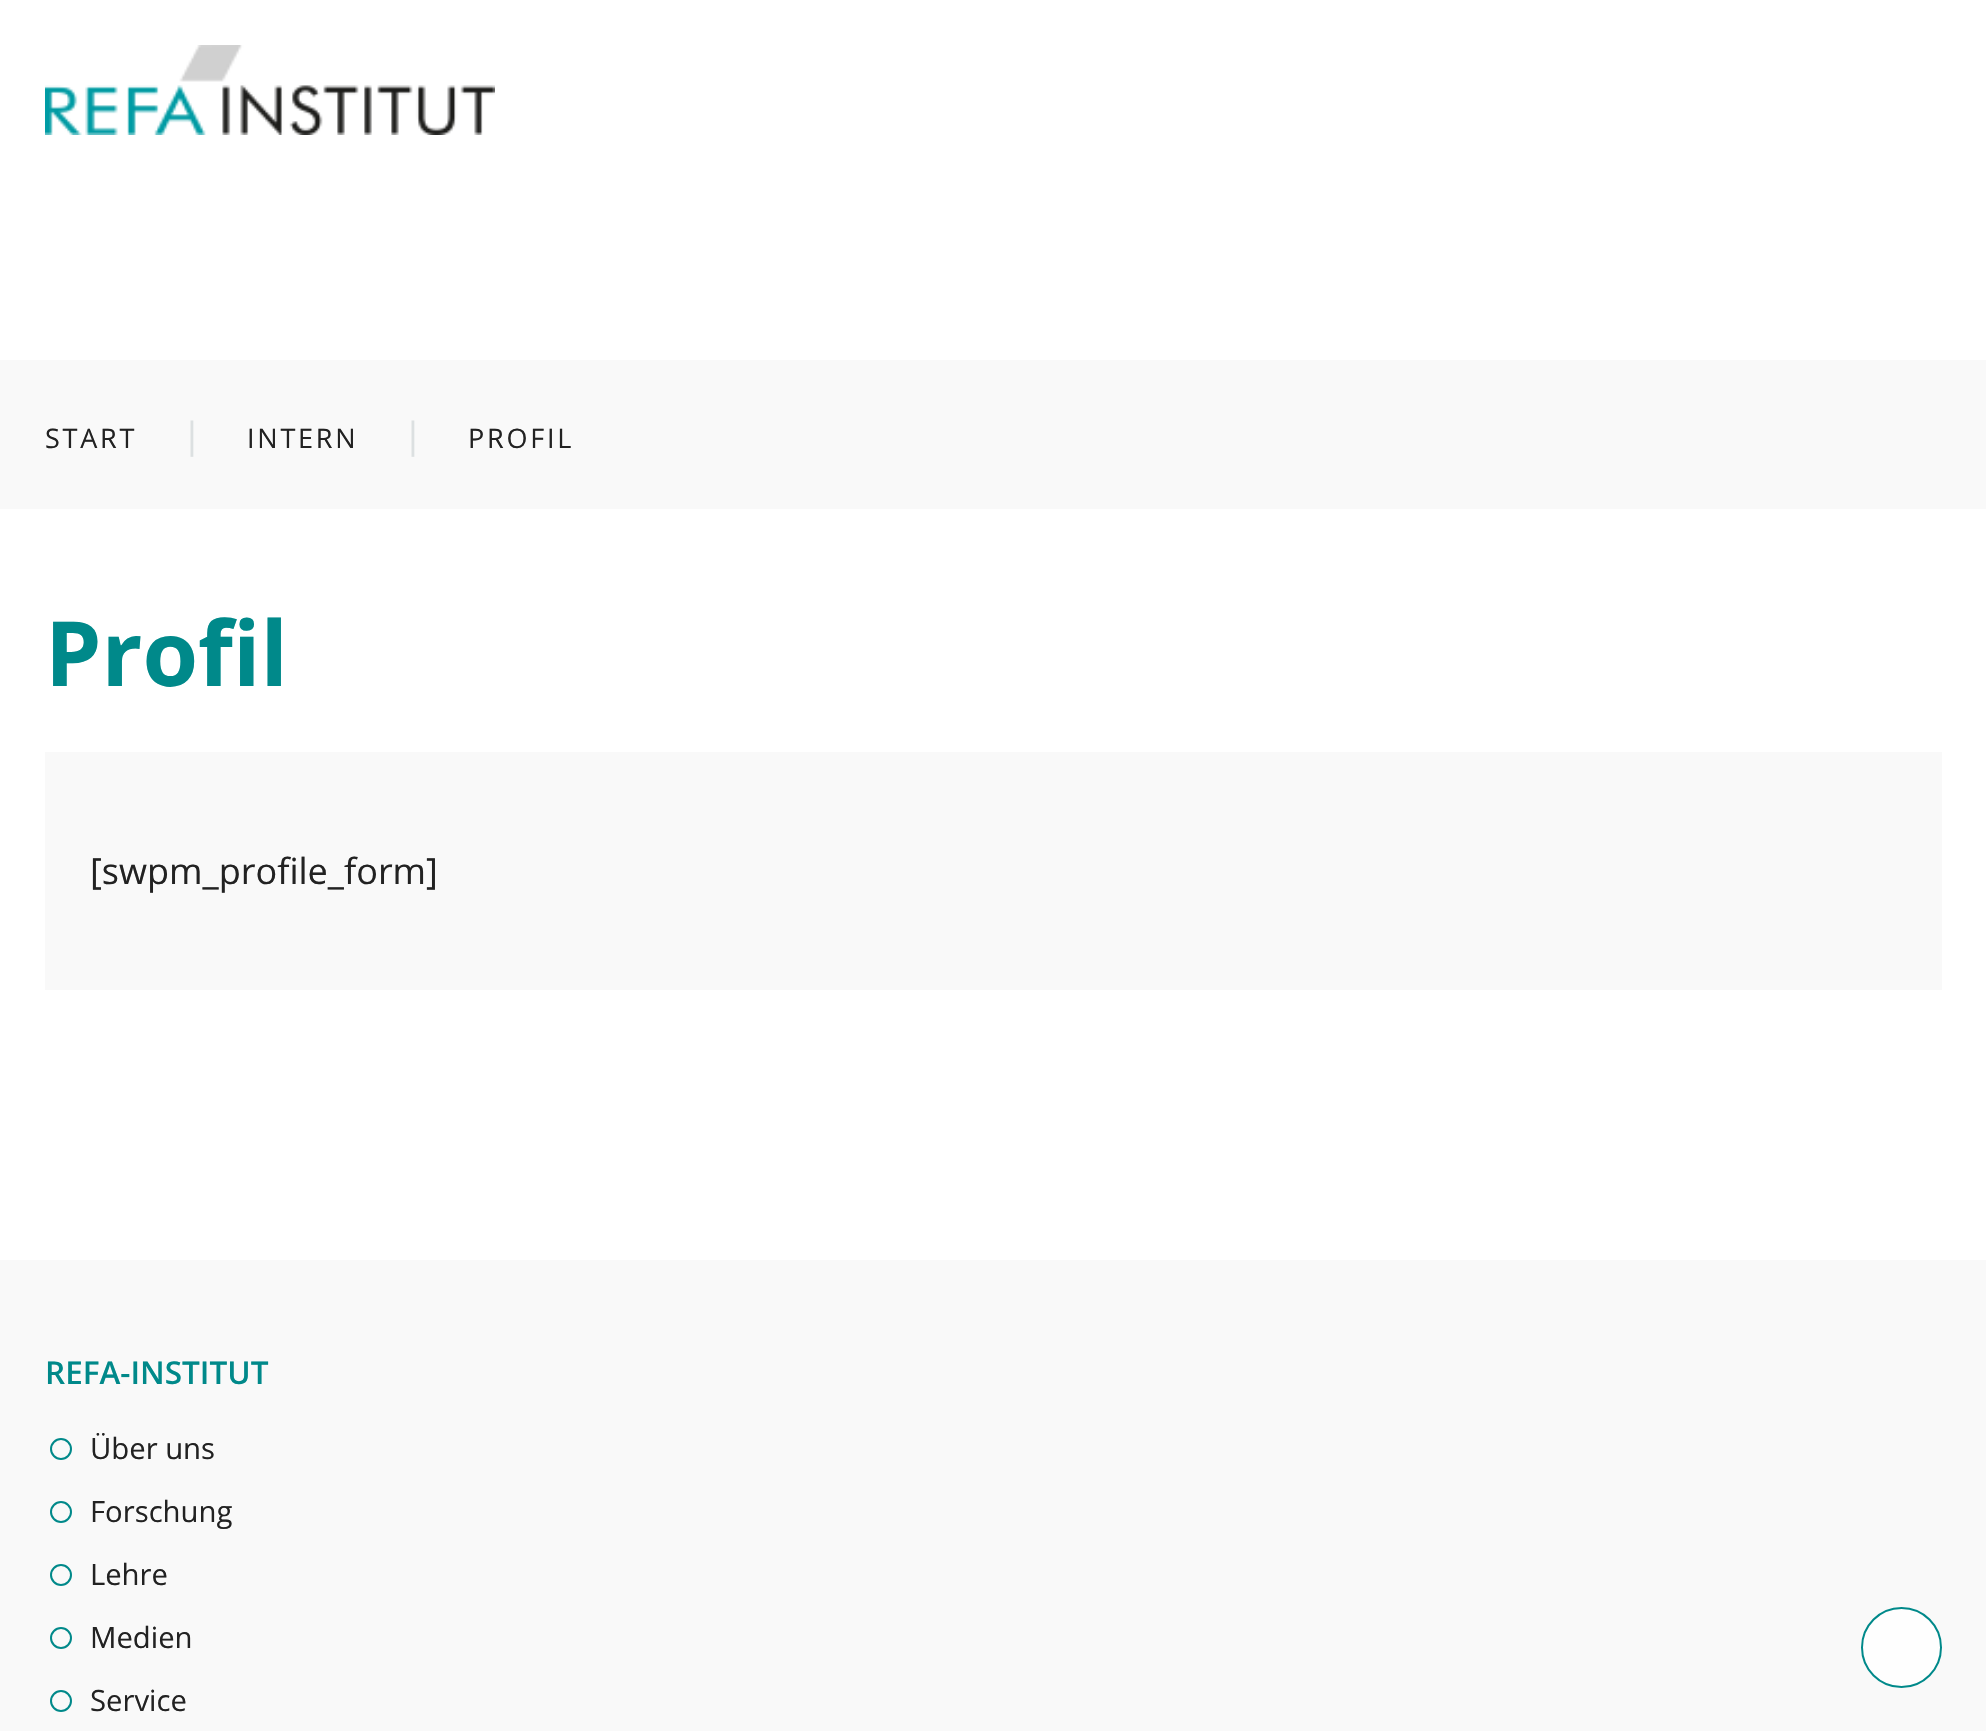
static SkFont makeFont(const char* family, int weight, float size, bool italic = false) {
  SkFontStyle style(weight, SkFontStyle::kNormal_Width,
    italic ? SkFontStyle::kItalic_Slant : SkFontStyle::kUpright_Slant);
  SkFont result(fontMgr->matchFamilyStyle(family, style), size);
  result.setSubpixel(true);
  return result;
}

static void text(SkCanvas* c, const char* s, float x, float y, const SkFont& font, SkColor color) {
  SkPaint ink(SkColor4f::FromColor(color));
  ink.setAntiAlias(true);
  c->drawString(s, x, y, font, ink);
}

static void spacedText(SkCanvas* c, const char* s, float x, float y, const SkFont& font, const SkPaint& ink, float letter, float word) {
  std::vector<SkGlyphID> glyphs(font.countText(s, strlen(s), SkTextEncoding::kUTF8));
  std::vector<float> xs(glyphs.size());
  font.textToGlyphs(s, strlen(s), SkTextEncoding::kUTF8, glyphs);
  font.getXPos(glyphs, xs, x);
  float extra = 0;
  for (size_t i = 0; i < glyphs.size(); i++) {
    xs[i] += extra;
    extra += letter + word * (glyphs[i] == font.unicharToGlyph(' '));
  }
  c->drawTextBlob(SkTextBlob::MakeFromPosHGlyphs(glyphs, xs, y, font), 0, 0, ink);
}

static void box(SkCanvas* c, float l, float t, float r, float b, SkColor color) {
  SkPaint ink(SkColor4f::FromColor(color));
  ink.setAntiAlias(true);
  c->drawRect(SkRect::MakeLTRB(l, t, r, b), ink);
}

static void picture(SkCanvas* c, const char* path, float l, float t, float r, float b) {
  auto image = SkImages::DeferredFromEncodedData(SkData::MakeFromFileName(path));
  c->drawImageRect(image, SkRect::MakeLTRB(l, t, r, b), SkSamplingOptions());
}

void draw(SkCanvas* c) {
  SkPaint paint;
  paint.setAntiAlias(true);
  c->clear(0xffffffff);
  picture(c, "img_01.png", 45, 45, 495, 135);
  box(c, 0, 360, 1986, 509, 0xfff9f9f9);
  SkFont face1 = makeFont("Open Sans", 400, 27);
  paint.setColor(0xff222222);
  spacedText(c, "START", 45, 448, face1, paint, 2.75f, 0);
  SkFont face2 = makeFont("Open Sans", 400, 36);
  text(c, "|", 182, 448, face2, 0xffdce0e1);
  spacedText(c, "INTERN", 247, 448, face1, paint, 2.75f, 0);
  text(c, "|", 403, 448, face2, 0xffdce0e1);
  spacedText(c, "PROFIL", 468, 448, face1, paint, 2.75f, 0);
  SkFont face3 = makeFont("Open Sans", 700, 90);
  text(c, "Profil", 45, 686, face3, 0xff00898a);
  box(c, 45, 752, 1942, 990, 0xfff9f9f9);
  text(c, "[swpm_profile_form]", 90, 884, face2, 0xff222222);
  box(c, 0, 1260, 1986, 1731, 0xfff9f9f9);
  SkFont face4 = makeFont("Open Sans", 600, 31.5f);
  text(c, "REFA-INSTITUT", 45, 1384, face4, 0xff00898a);
  paint.setStyle(SkPaint::kStroke_Style);
  paint.setStrokeWidth(2);
  paint.setColor(0xff00898a);
  c->drawCircle(61, 1449, 10, paint);
  SkFont face5 = makeFont("Open Sans", 400, 29.25f);
  text(c, "Über uns", 90, 1459, face5, 0xff222222);
  c->drawCircle(61, 1512, 10, paint);
  text(c, "Forschung", 90, 1522, face5, 0xff222222);
  c->drawCircle(61, 1575, 10, paint);
  text(c, "Lehre", 90, 1585, face5, 0xff222222);
  c->drawCircle(61, 1638, 10, paint);
  text(c, "Medien", 90, 1648, face5, 0xff222222);
  c->drawCircle(61, 1701, 10, paint);
  text(c, "Service", 90, 1711, face5, 0xff222222);
  paint.setStyle(SkPaint::kFill_Style);
  paint.setColor(0xfffefefe);
  c->drawCircle(1901.5f, 1647.5f, 39.5f, paint);
  paint.setStyle(SkPaint::kStroke_Style);
  paint.setColor(0xff00898a);
  c->drawCircle(1901.5f, 1647.5f, 39.5f, paint);
}
